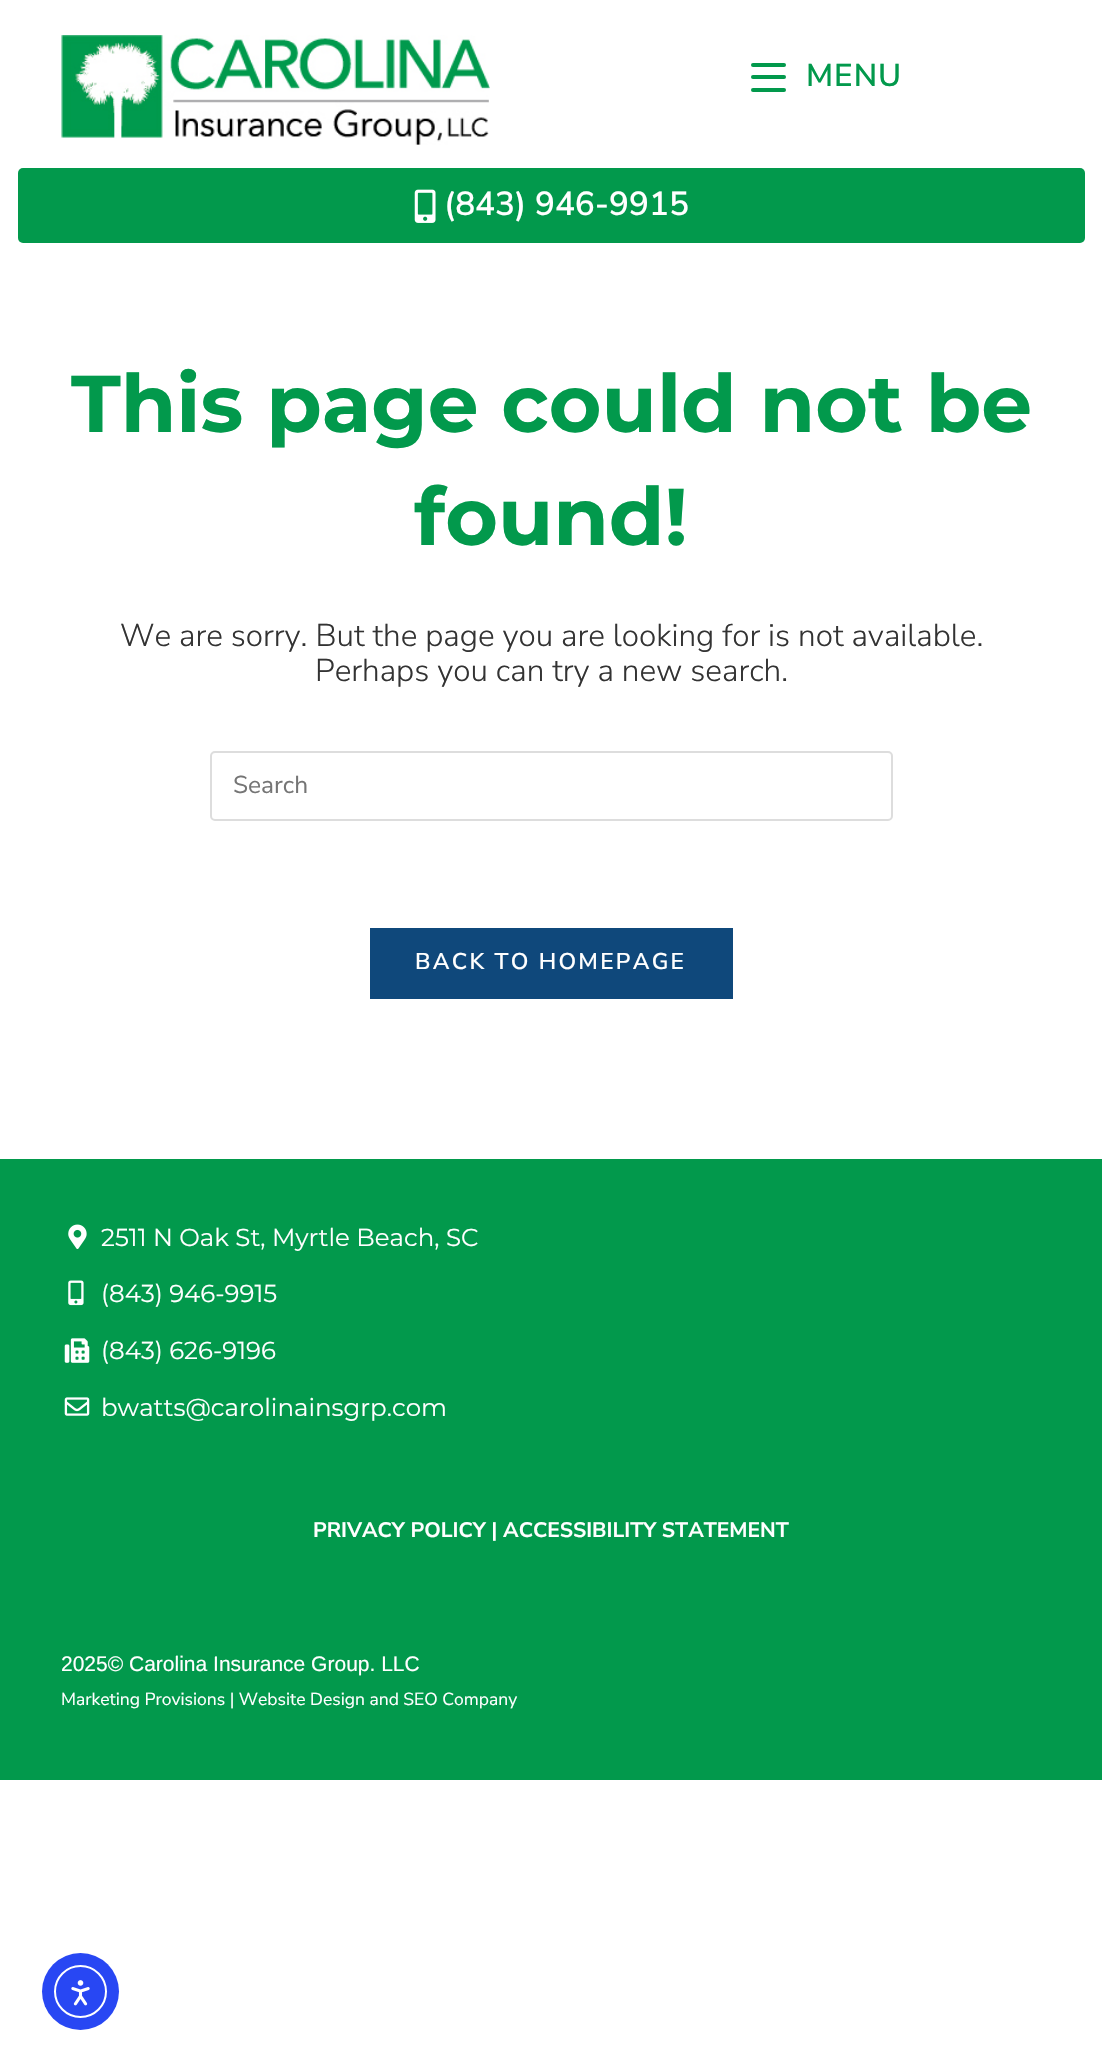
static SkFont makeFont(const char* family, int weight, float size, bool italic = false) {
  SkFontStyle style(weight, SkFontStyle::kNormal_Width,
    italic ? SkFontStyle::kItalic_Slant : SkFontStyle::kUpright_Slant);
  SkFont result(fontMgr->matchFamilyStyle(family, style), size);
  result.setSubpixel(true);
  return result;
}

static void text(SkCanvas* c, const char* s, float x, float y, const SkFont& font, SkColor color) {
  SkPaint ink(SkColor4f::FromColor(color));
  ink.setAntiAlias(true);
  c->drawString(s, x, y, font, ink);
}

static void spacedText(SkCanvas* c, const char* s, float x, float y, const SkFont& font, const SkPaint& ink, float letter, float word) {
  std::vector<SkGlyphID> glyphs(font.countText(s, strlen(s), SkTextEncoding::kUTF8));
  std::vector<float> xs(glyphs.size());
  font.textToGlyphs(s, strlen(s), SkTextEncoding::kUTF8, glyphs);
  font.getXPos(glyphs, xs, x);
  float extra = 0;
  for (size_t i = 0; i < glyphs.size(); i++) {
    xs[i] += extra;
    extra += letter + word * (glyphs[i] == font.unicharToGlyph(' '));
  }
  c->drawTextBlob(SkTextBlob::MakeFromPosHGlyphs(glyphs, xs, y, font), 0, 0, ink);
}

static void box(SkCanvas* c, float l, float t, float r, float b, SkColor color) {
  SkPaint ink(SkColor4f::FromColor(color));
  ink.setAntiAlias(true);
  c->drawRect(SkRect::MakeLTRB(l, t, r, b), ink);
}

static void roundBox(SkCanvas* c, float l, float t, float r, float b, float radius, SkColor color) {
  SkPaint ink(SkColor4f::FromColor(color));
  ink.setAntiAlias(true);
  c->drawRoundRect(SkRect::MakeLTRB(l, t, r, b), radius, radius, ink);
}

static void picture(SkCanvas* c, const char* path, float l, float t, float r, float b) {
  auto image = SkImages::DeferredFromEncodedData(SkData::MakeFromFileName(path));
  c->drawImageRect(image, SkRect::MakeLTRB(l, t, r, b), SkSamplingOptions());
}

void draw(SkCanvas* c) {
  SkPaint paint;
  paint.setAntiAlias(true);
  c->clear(0xffffffff);
  picture(c, "img_01.png", 61, 35, 490, 145);
  roundBox(c, 751, 75, 786, 79, 2, 0xff02994c);
  roundBox(c, 751, 63, 786, 67, 2, 0xff02994c);
  roundBox(c, 751, 88, 786, 92, 2, 0xff02994c);
  SkFont face1 = makeFont("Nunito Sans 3", 200, 31.5f);
  paint.setColor(0xff02994c);
  spacedText(c, "MENU", 806, 86, face1, paint, 1, 0);
  roundBox(c, 18, 168, 1085, 243, 5, 0xff02994c);
  picture(c, "img_02.png", 414, 189, 436, 223);
  SkFont face2 = makeFont("Nunito Sans 3", 200, 33.25f);
  text(c, "(843) 946-9915", 444, 215, face2, 0xffffffff);
  SkFont face3 = makeFont("Montserrat", 100, 80.5f);
  text(c, "This page could not be", 71, 432, face3, 0xff02994c);
  text(c, "found!", 414, 545, face3, 0xff02994c);
  SkFont face4 = makeFont("Nunito Sans", 200, 31.5f);
  text(c, "We are sorry. But the page you are looking for is not available.", 120, 646, face4, 0xff333333);
  text(c, "Perhaps you can try a new search.", 315, 681, face4, 0xff333333);
  paint.setStyle(SkPaint::kStroke_Style);
  paint.setStrokeWidth(2);
  paint.setColor(0xffdddddd);
  c->drawRoundRect(SkRect::MakeLTRB(211, 752, 892, 820), 4, 4, paint);
  SkFont face5 = makeFont("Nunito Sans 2", 200, 24.5f);
  text(c, "Search", 233, 793, face5, 0xff757575);
  box(c, 370, 928, 733, 999, 0xff0f487b);
  SkFont face6 = makeFont("Nunito Sans 3", 200, 22.75f);
  paint.setStyle(SkPaint::kFill_Style);
  paint.setColor(0xffffffff);
  spacedText(c, "BACK TO HOMEPAGE", 415, 969, face6, paint, 2.25f, 0);
  box(c, 0, 1159, 1102, 1780, 0xff02994c);
  picture(c, "img_03.png", 68, 1224, 87, 1249);
  SkFont face7 = makeFont("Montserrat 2", 100, 24.5f);
  text(c, "2511 N Oak St, Myrtle Beach, SC", 101, 1246, face7, 0xffffffff);
  picture(c, "img_04.png", 68, 1280, 84, 1306);
  text(c, "(843) 946-9915", 101, 1302, face7, 0xffffffff);
  picture(c, "img_05.png", 64, 1338, 90, 1363);
  text(c, "(843) 626-9196", 101, 1359, face7, 0xffffffff);
  picture(c, "img_06.png", 64, 1397, 90, 1416);
  text(c, "bwatts@carolinainsgrp.com", 101, 1416, face7, 0xffffffff);
  SkFont face8 = makeFont("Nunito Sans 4", 200, 21);
  text(c, "PRIVACY POLICY | ACCESSIBILITY STATEMENT", 313, 1537, face8, 0xffffffff);
  SkFont face9 = makeFont("Liberation Sans", 400, 21);
  text(c, "2025© Carolina Insurance Group. LLC", 61, 1671, face9, 0xffffffff);
  SkFont face10 = makeFont("Nunito Sans 2", 200, 17.5f);
  text(c, "Marketing Provisions | Website Design and SEO Company", 61, 1705, face10, 0xffffffff);
  paint.setColor(0xff2847f3);
  c->drawCircle(80.5f, 1991.5f, 38.5f, paint);
  paint.setStyle(SkPaint::kStroke_Style);
  paint.setColor(0xffffffff);
  c->drawCircle(80.5f, 1991.5f, 25.5f, paint);
  picture(c, "img_07.png", 71, 1980, 90, 2006);
}
